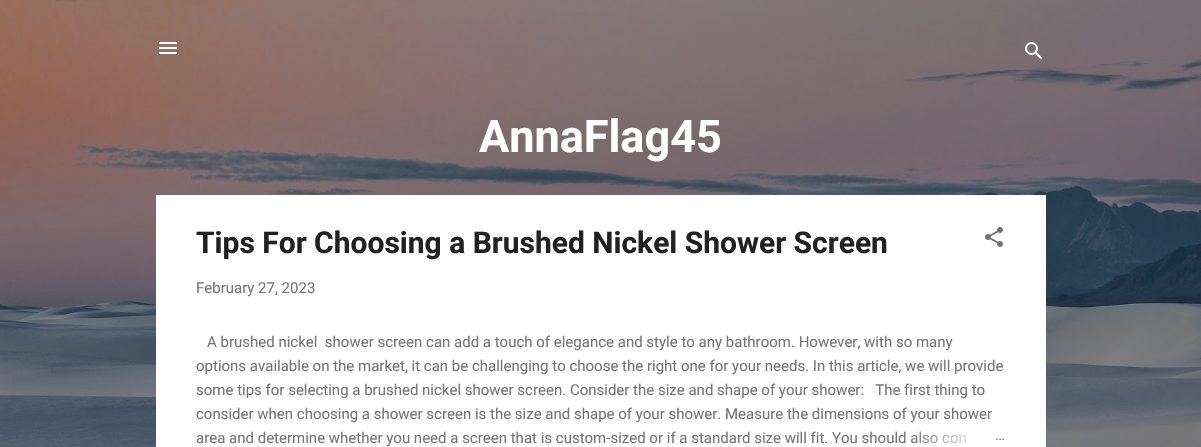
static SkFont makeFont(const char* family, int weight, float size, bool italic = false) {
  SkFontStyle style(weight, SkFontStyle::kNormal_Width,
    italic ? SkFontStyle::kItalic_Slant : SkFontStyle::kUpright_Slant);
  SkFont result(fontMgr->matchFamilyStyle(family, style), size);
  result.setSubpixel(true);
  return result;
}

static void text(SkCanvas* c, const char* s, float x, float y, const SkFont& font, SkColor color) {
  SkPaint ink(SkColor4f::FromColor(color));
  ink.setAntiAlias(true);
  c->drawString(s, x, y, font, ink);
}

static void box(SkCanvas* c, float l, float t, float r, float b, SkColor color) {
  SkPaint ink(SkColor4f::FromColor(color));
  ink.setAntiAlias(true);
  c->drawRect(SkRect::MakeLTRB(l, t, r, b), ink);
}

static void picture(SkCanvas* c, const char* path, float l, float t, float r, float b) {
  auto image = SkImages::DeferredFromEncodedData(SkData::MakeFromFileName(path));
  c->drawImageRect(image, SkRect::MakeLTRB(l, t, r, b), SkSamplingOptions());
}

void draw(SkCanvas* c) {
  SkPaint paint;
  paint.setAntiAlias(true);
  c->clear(0xffffffff);
  picture(c, "img_01.png", 0, 0, 1201, 447);
  picture(c, "img_02.png", 159, 42, 177, 54);
  picture(c, "img_03.png", 1025, 42, 1043, 60);
  SkFont face1 = makeFont("Roboto", 700, 45);
  text(c, "AnnaFlag45", 479, 152, face1, 0xffffffff);
  box(c, 156, 195, 1046, 447, 0xffffffff);
  SkFont face2 = makeFont("Roboto", 700, 30);
  text(c, "Tips For Choosing a Brushed Nickel Shower Screen", 196, 253, face2, 0xff212121);
  picture(c, "img_04.png", 985, 227, 1003, 247);
  SkFont face3 = makeFont("Roboto", 400, 15);
  text(c, "February 27, 2023", 196, 293, face3, 0xff757575);
  text(c, "A brushed nickel  shower screen can add a touch of elegance and style to any bathroom. However, with so many", 207, 347, face3, 0xff757575);
  text(c, "options available on the market, it can be challenging to choose the right one for your needs. In this article, we will provide", 196, 371, face3, 0xff757575);
  text(c, "some tips for selecting a brushed nickel shower screen. Consider the size and shape of your shower:   The first thing to", 196, 395, face3, 0xff757575);
  text(c, "consider when choosing a shower screen is the size and shape of your shower. Measure the dimensions of your shower", 196, 419, face3, 0xff757575);
  text(c, "area and determine whether you need a screen that is custom-sized or if a standard size will fit. You should also con", 196, 443, face3, 0xff757575);
  {
    const SkColor colors[] = {0xffffffff, 0xffffffff, 0x00ffffff};
    const float stops[] = {0, 0.2f, 1};
    const SkPoint ends[] = {{1006, 438}, {910, 438}};
    paint.setShader(SkGradientShader::MakeLinear(ends, colors, stops, 3, SkTileMode::kClamp));
    paint.setAlpha(255);
  }
  c->drawRect(SkRect::MakeLTRB(912, 431, 966, 444), paint);
  text(c, "…", 995, 440, face3, 0xff757575);
}
